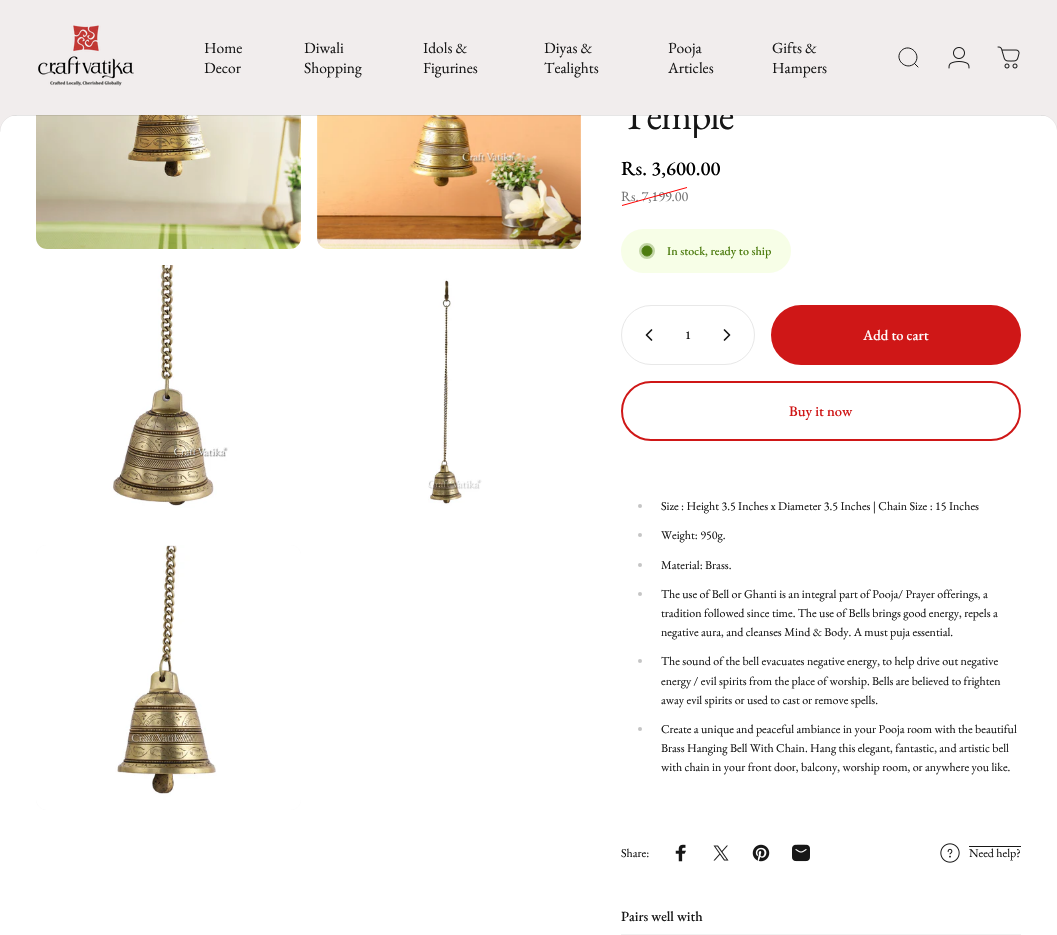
static SkFont makeFont(const char* family, int weight, float size, bool italic = false) {
  SkFontStyle style(weight, SkFontStyle::kNormal_Width,
    italic ? SkFontStyle::kItalic_Slant : SkFontStyle::kUpright_Slant);
  SkFont result(fontMgr->matchFamilyStyle(family, style), size);
  result.setSubpixel(true);
  return result;
}

static void text(SkCanvas* c, const char* s, float x, float y, const SkFont& font, SkColor color) {
  SkPaint ink(SkColor4f::FromColor(color));
  ink.setAntiAlias(true);
  c->drawString(s, x, y, font, ink);
}

static void spacedText(SkCanvas* c, const char* s, float x, float y, const SkFont& font, const SkPaint& ink, float letter, float word) {
  std::vector<SkGlyphID> glyphs(font.countText(s, strlen(s), SkTextEncoding::kUTF8));
  std::vector<float> xs(glyphs.size());
  font.textToGlyphs(s, strlen(s), SkTextEncoding::kUTF8, glyphs);
  font.getXPos(glyphs, xs, x);
  float extra = 0;
  for (size_t i = 0; i < glyphs.size(); i++) {
    xs[i] += extra;
    extra += letter + word * (glyphs[i] == font.unicharToGlyph(' '));
  }
  c->drawTextBlob(SkTextBlob::MakeFromPosHGlyphs(glyphs, xs, y, font), 0, 0, ink);
}

static void box(SkCanvas* c, float l, float t, float r, float b, SkColor color) {
  SkPaint ink(SkColor4f::FromColor(color));
  ink.setAntiAlias(true);
  c->drawRect(SkRect::MakeLTRB(l, t, r, b), ink);
}

static void roundBox(SkCanvas* c, float l, float t, float r, float b, float radius, SkColor color) {
  SkPaint ink(SkColor4f::FromColor(color));
  ink.setAntiAlias(true);
  c->drawRoundRect(SkRect::MakeLTRB(l, t, r, b), radius, radius, ink);
}

static void picture(SkCanvas* c, const char* path, float l, float t, float r, float b) {
  auto image = SkImages::DeferredFromEncodedData(SkData::MakeFromFileName(path));
  c->drawImageRect(image, SkRect::MakeLTRB(l, t, r, b), SkSamplingOptions());
}

void draw(SkCanvas* c) {
  SkPaint paint;
  paint.setAntiAlias(true);
  c->clear(0xffffffff);
  c->save();
  c->clipRect(SkRect::MakeLTRB(619, 92, 735, 138));
  SkFont face1 = makeFont("EB Garamond", 400, 40);
  paint.setColor(0xff171717);
  spacedText(c, "Temple", 621, 129, face1, paint, -1.25f, 0);
  c->restore();
  box(c, 0, 0, 1057, 115, 0xfff1eded);
  picture(c, "img_01.png", 38, 25, 134, 86);
  SkFont face2 = makeFont("EB Garamond", 400, 15.5f);
  text(c, "Home", 204, 53, face2, 0xff171717);
  text(c, "Decor", 204, 73, face2, 0xff171717);
  text(c, "Diwali", 304, 53, face2, 0xff171717);
  text(c, "Shopping", 304, 73, face2, 0xff171717);
  text(c, "Idols &", 423, 53, face2, 0xff171717);
  text(c, "Figurines", 423, 73, face2, 0xff171717);
  text(c, "Diyas &", 544, 53, face2, 0xff171717);
  text(c, "Tealights", 544, 73, face2, 0xff171717);
  text(c, "Pooja", 668, 53, face2, 0xff171717);
  text(c, "Articles", 668, 73, face2, 0xff171717);
  text(c, "Gifts &", 772, 53, face2, 0xff171717);
  text(c, "Hampers", 772, 73, face2, 0xff171717);
  paint.setStyle(SkPaint::kStroke_Style);
  paint.setStrokeWidth(1);
  paint.setStrokeCap(SkPaint::kRound_Cap);
  c->drawPath(SkPathBuilder().moveTo(918, 67).lineTo(914.5f, 63.5f).moveTo(914.5f, 63.5f).cubicTo(922.5f, 55, 910, 42.5f, 901.5f, 50.5f).cubicTo(893.5f, 59, 906, 71.5f, 914.5f, 63.5f).close().detach(), paint);
  picture(c, "img_02.png", 948, 47, 970, 69);
  picture(c, "img_03.png", 997, 46, 1020, 69);
  picture(c, "img_06.png", 36, 115, 301, 249);
  picture(c, "img_07.png", 317, 115, 581, 249);
  box(c, 11, 115, 1046, 116, 0x1c171717);
  picture(c, "img_04.png", 0, 115, 17, 132);
  picture(c, "img_05.png", 1041, 115, 1057, 130);
  picture(c, "img_08.png", 36, 265, 301, 529);
  picture(c, "img_09.png", 317, 265, 581, 529);
  roundBox(c, 36, 545, 301, 810, 11, 0xfffafafa);
  picture(c, "img_10.png", 36, 545, 301, 810);
  SkFont face3 = makeFont("EB Garamond", 500, 20);
  text(c, "Rs. 3,600.00", 621, 175, face3, 0xff000000);
  SkFont face4 = makeFont("EB Garamond", 400, 14);
  text(c, "Rs. 7,199.00", 621, 201, face4, 0xff747474);
  paint.setStyle(SkPaint::kFill_Style);
  paint.setColor(0xffff0000);
  c->drawPath(SkPathBuilder().moveTo(622, 205).lineTo(687, 187).lineTo(687, 188).lineTo(622, 206).close().detach(), paint);
  roundBox(c, 621, 229, 791, 273, 22, 0xfff7fee7);
  paint.setColor(0xff4d7c0f);
  c->drawCircle(647, 251, 5, paint);
  paint.setStyle(SkPaint::kStroke_Style);
  paint.setStrokeCap(SkPaint::kButt_Cap);
  c->drawCircle(647, 251, 5, paint);
  paint.setStrokeWidth(3);
  paint.setColor(0x4d4d7c0f);
  c->drawCircle(647, 251, 6.5f, paint);
  SkFont face5 = makeFont("EB Garamond", 500, 12);
  text(c, "In stock, ready to ship", 667, 255, face5, 0xff4d7c0f);
  paint.setStrokeWidth(1);
  paint.setColor(0xffe8e8e8);
  c->drawRoundRect(SkRect::MakeLTRB(621.5f, 305.5f, 754.5f, 364.5f), 29.5f, 29.5f, paint);
  paint.setStrokeWidth(1.7f);
  paint.setStrokeCap(SkPaint::kRound_Cap);
  paint.setStrokeJoin(SkPaint::kRound_Join);
  paint.setColor(0xff171717);
  c->drawPath(SkPathBuilder().moveTo(651.5f, 330).lineTo(646.5f, 335).lineTo(651.5f, 340).detach(), paint);
  text(c, "1", 685, 339, face5, 0xff171717);
  c->drawPath(SkPathBuilder().moveTo(724.5f, 330).lineTo(729.5f, 335).lineTo(724.5f, 340).detach(), paint);
  paint.setStyle(SkPaint::kFill_Style);
  paint.setColor(0xffcf1717);
  c->drawRoundRect(SkRect::MakeLTRB(772, 306, 1020, 364), 29, 29, paint);
  paint.setStyle(SkPaint::kStroke_Style);
  paint.setStrokeWidth(2);
  paint.setStrokeCap(SkPaint::kButt_Cap);
  paint.setStrokeJoin(SkPaint::kMiter_Join);
  c->drawRoundRect(SkRect::MakeLTRB(772, 306, 1020, 364), 29, 29, paint);
  SkFont face6 = makeFont("EB Garamond", 500, 14.5f);
  text(c, "Add to cart", 863, 340, face6, 0xffffffff);
  c->drawRoundRect(SkRect::MakeLTRB(622, 382, 1020, 440), 29, 29, paint);
  text(c, "Buy it now", 789, 416, face6, 0xffcf1717);
  paint.setStyle(SkPaint::kFill_Style);
  paint.setColor(0xffc5c5c5);
  c->drawCircle(640, 506, 2, paint);
  SkFont face7 = makeFont("EB Garamond", 400, 12);
  text(c, "Size : Height 3.5 Inches x Diameter 3.5 Inches | Chain Size : 15 Inches", 661, 510, face7, 0xff171717);
  c->drawCircle(640, 535, 2, paint);
  text(c, "Weight: 950g.", 661, 539, face7, 0xff171717);
  c->drawCircle(640, 565, 2, paint);
  text(c, "Material: Brass.", 661, 569, face7, 0xff171717);
  c->drawCircle(640, 594, 2, paint);
  text(c, "The use of Bell or Ghanti is an integral part of Pooja/ Prayer offerings, a", 661, 598, face7, 0xff171717);
  text(c, "tradition followed since time. The use of Bells brings good energy, repels a", 661, 617, face7, 0xff171717);
  text(c, "negative aura, and cleanses Mind & Body. A must puja essential.", 661, 636, face7, 0xff171717);
  c->drawCircle(640, 661, 2, paint);
  text(c, "The sound of the bell evacuates negative energy, to help drive out negative", 661, 665, face7, 0xff171717);
  text(c, "energy / evil spirits from the place of worship. Bells are believed to frighten", 661, 685, face7, 0xff171717);
  text(c, "away evil spirits or used to cast or remove spells.", 661, 704, face7, 0xff171717);
  c->drawCircle(640, 729, 2, paint);
  text(c, "Create a unique and peaceful ambiance in your Pooja room with the beautiful", 661, 733, face7, 0xff171717);
  text(c, "Brass Hanging Bell With Chain. Hang this elegant, fantastic, and artistic bell", 661, 752, face7, 0xff171717);
  text(c, "with chain in your front door, balcony, worship room, or anywhere you like.", 661, 771, face7, 0xff171717);
  text(c, "Share:", 621, 857, face7, 0xff171717);
  picture(c, "img_11.png", 675, 844, 686, 862);
  picture(c, "img_12.png", 713, 845, 729, 861);
  picture(c, "img_13.png", 752, 844, 770, 862);
  picture(c, "img_14.png", 792, 844, 810, 862);
  picture(c, "img_15.png", 940, 843, 960, 863);
  box(c, 969, 846, 1021, 847, 0xff171717);
  text(c, "Need help?", 969, 857, face7, 0xff171717);
  box(c, 621, 934, 1021, 935, 0xfff1f1f1);
  SkFont face8 = makeFont("EB Garamond", 500, 14);
  text(c, "Pairs well with", 621, 921, face8, 0xff171717);
}
